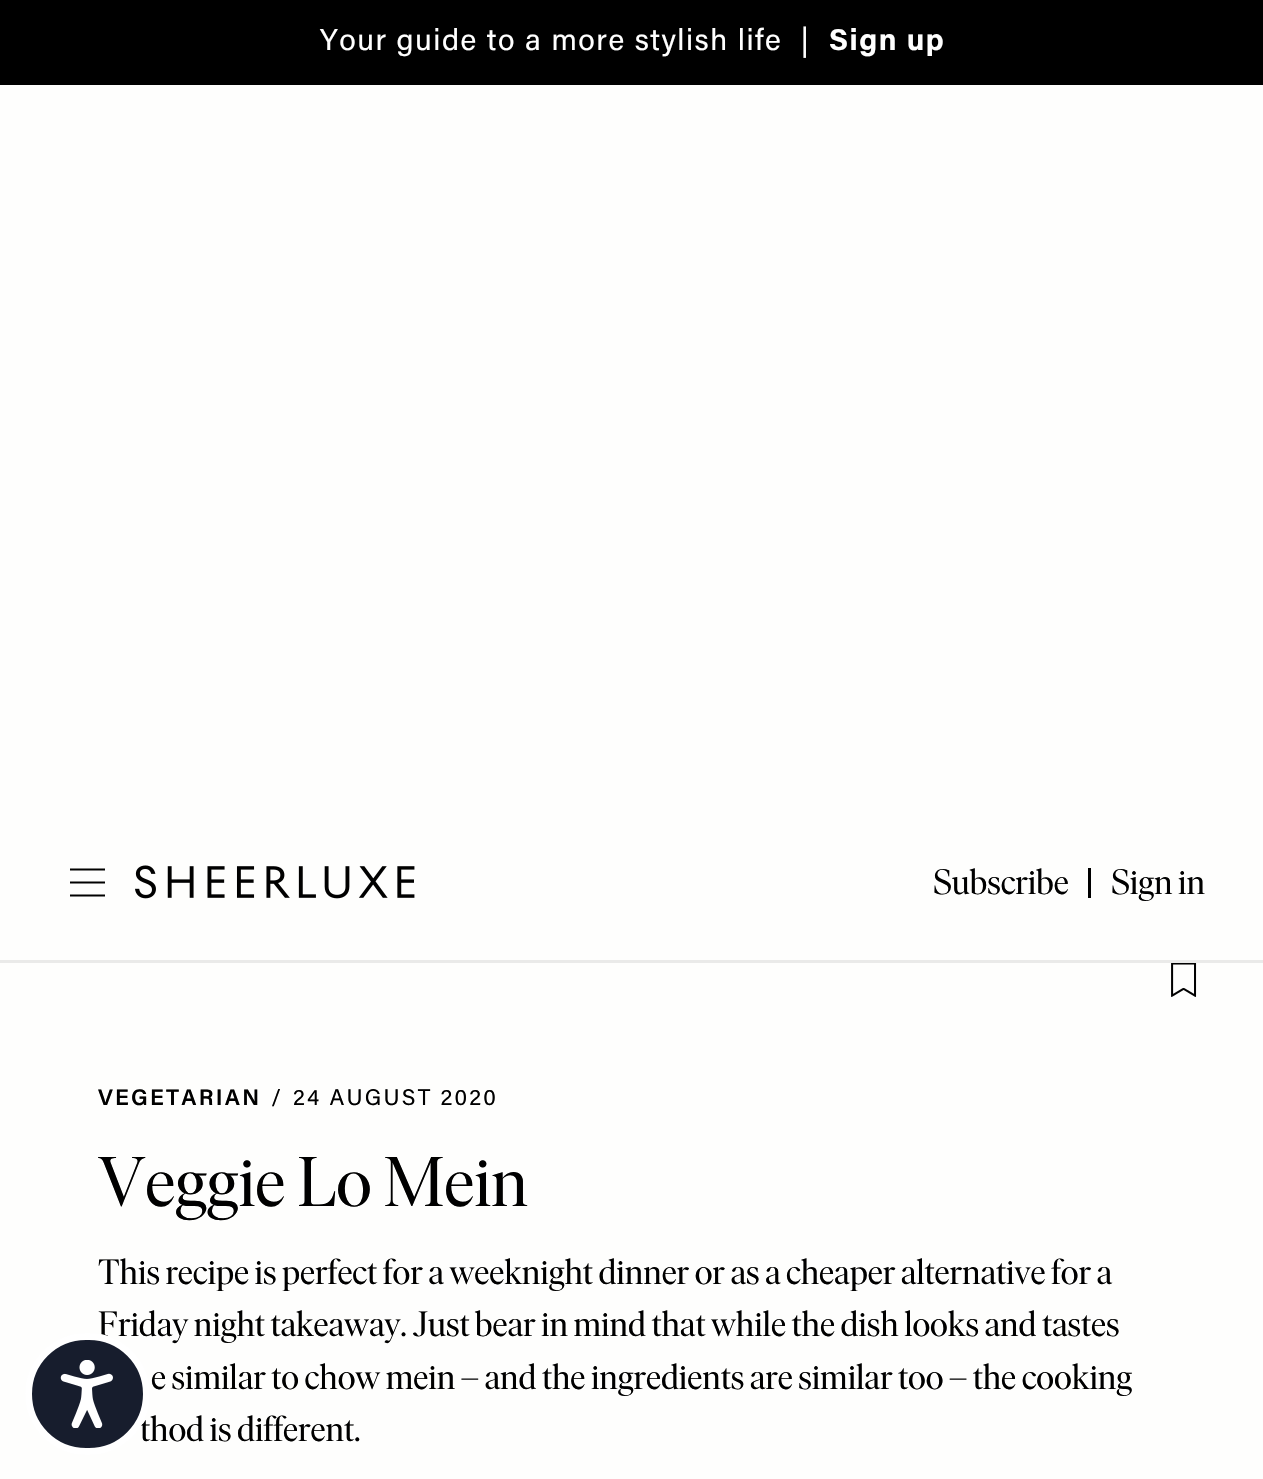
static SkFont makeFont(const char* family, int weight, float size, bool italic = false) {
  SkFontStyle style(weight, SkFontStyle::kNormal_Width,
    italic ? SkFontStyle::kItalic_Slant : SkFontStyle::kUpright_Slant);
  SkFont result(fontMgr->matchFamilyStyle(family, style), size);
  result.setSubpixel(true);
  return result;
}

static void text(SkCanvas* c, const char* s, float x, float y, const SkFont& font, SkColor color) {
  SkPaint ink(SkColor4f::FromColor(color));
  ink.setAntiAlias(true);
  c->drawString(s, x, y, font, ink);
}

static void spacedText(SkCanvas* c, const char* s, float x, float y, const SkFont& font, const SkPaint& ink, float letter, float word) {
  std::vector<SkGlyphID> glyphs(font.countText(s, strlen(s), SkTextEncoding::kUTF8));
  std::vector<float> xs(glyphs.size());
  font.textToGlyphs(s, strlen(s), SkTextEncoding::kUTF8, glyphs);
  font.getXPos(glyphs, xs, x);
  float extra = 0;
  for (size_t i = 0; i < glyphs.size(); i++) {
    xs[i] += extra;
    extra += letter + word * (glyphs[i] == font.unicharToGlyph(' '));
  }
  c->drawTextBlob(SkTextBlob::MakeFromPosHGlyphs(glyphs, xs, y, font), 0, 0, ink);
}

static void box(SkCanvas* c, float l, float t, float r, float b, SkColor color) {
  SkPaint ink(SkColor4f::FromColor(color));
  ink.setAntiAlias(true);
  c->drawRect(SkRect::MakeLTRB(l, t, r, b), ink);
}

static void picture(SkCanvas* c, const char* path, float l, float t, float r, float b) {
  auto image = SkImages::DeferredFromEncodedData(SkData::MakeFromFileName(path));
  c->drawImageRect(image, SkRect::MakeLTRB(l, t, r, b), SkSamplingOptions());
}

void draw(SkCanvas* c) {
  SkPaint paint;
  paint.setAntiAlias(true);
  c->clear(0xfffefefd);
  SkFont face1 = makeFont("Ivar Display", 400, 35);
  text(c, "Friday night takeaway. Just bear in mind that while the dish looks and tastes", 98, 1336, face1, 0xff000000);
  text(c, "thod is different.", 140, 1441, face1, 0xff000000);
  paint.setColor(0xff171d2d);
  c->drawRoundRect(SkRect::MakeLTRB(28.5f, 1336.5f, 146.5f, 1451.5f), 57.5f, 57.5f, paint);
  paint.setStyle(SkPaint::kStroke_Style);
  paint.setStrokeWidth(7);
  paint.setColor(0xffffffff);
  c->drawRoundRect(SkRect::MakeLTRB(28.5f, 1336.5f, 146.5f, 1451.5f), 57.5f, 57.5f, paint);
  picture(c, "img_01.png", 60, 1360, 113, 1428);
  box(c, 0, 0, 1263, 85, 0xff000000);
  SkFont face2 = makeFont("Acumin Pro", 400, 30);
  paint.setStyle(SkPaint::kFill_Style);
  spacedText(c, "Your guide to a more stylish life  |", 320, 50, face2, paint, 1.5f, 0);
  SkFont face3 = makeFont("Acumin Pro", 700, 30);
  spacedText(c, "Sign up", 829, 50, face3, paint, 1.5f, 0);
  box(c, 0, 960, 1263, 963, 0xffeaeae9);
  paint.setStyle(SkPaint::kStroke_Style);
  paint.setStrokeWidth(2.2f);
  paint.setColor(0xff000000);
  c->drawPath(SkPathBuilder().moveTo(70, 869.5f).lineTo(105, 869.5f).moveTo(70, 882.5f).lineTo(105, 882.5f).moveTo(70, 895.5f).lineTo(105, 895.5f).detach(), paint);
  picture(c, "img_02.png", 135, 865, 415, 899);
  text(c, "Subscribe", 933, 894, face1, 0xff000000);
  box(c, 1088, 868, 1091, 898, 0xff000000);
  text(c, "Sign in", 1111, 894, face1, 0xff000000);
  picture(c, "img_03.png", 1171, 963, 1197, 997);
  SkFont face4 = makeFont("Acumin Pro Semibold", 600, 22.5f);
  paint.setStyle(SkPaint::kFill_Style);
  spacedText(c, "VEGETARIAN", 98, 1105, face4, paint, 2.25f, 0);
  SkFont face5 = makeFont("Acumin Pro", 400, 22.5f);
  spacedText(c, "/", 271, 1105, face5, paint, 2.25f, 0);
  spacedText(c, "24 AUGUST 2020", 293, 1105, face5, paint, 2.25f, 0);
  SkFont face6 = makeFont("Ivar Display", 400, 70);
  spacedText(c, "Veggie Lo Mein", 98, 1206, face6, paint, 0, 1);
  text(c, "This recipe is perfect for a weeknight dinner or as a cheaper alternative for a", 98, 1284, face1, 0xff000000);
  text(c, "e similar to chow mein – and the ingredients are similar too – the cooking", 151, 1389, face1, 0xff000000);
}
